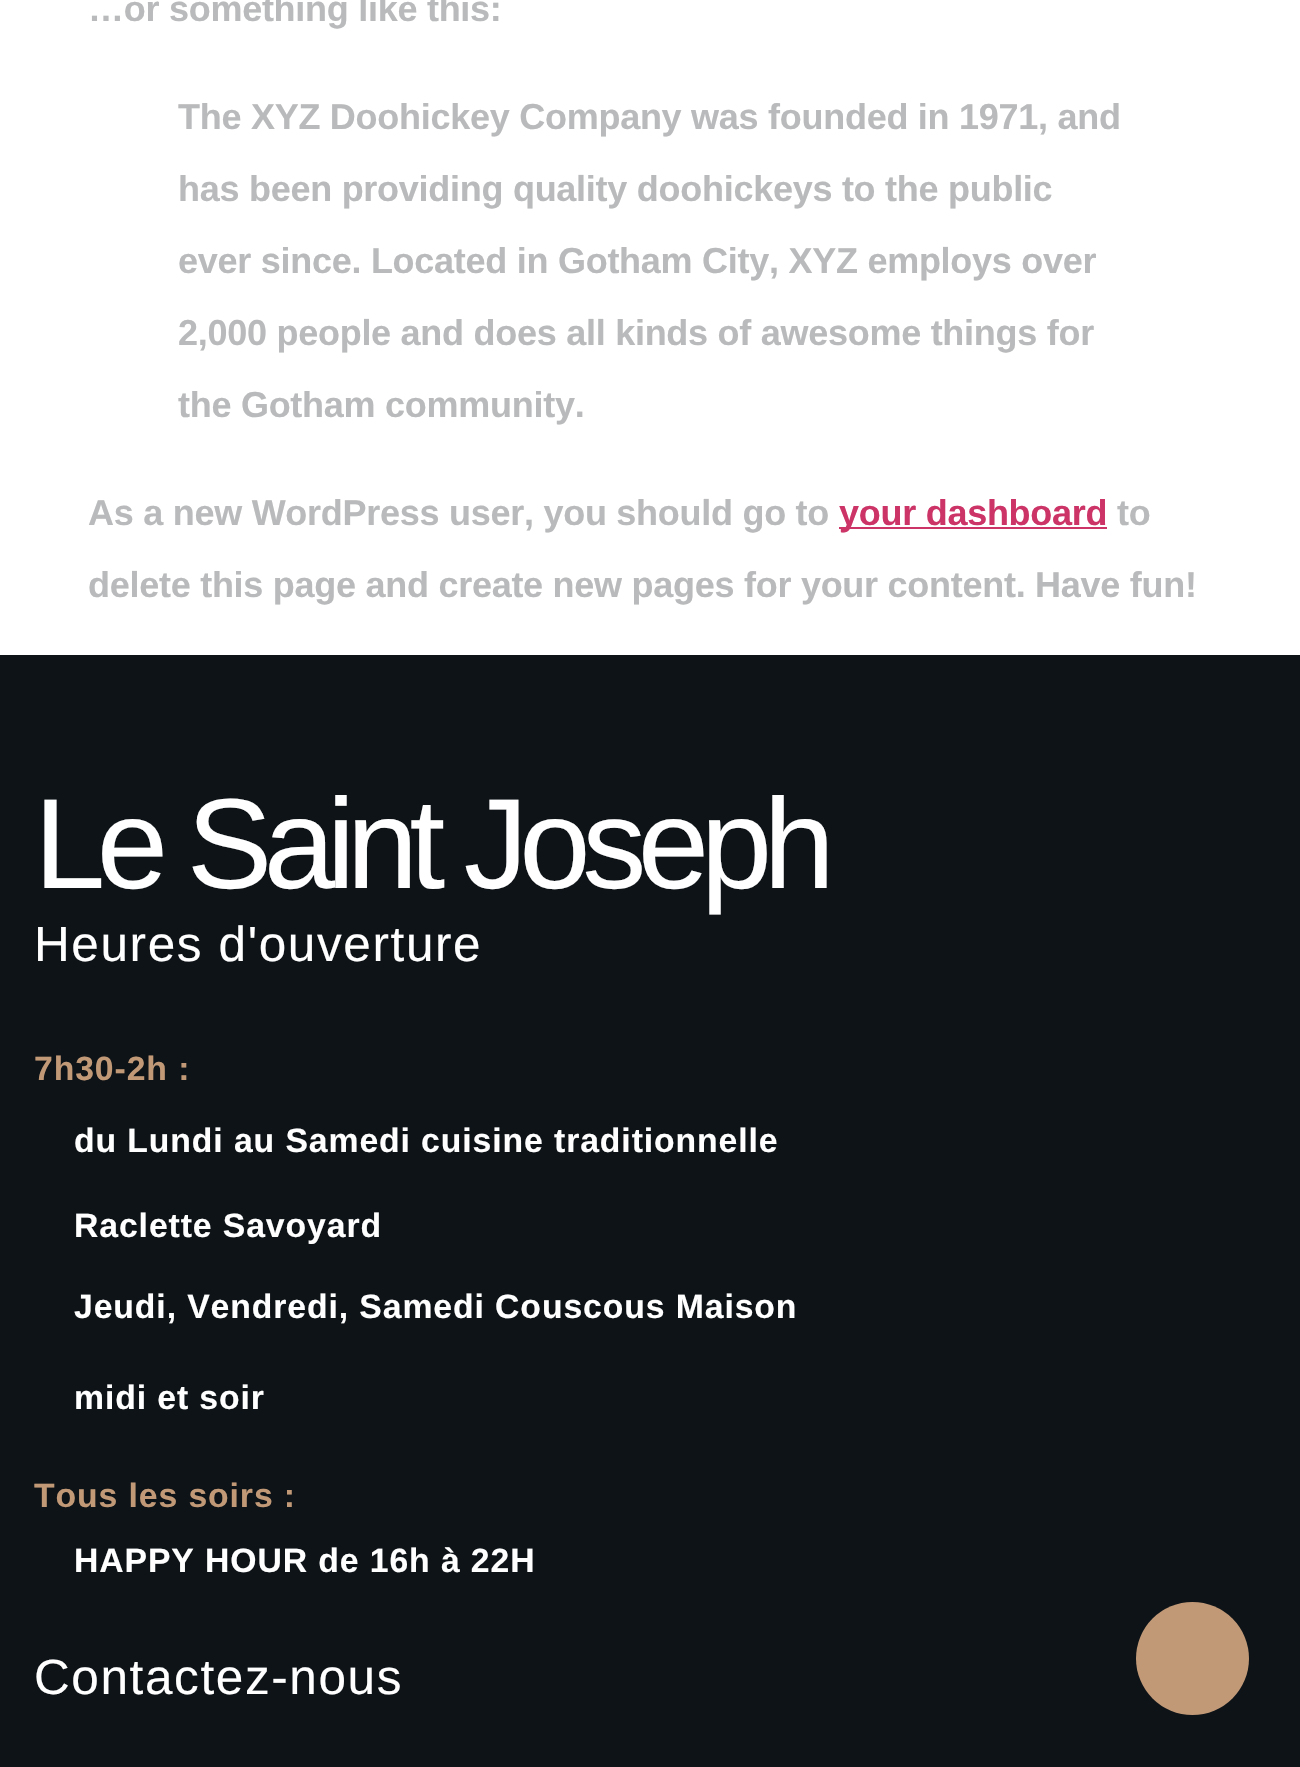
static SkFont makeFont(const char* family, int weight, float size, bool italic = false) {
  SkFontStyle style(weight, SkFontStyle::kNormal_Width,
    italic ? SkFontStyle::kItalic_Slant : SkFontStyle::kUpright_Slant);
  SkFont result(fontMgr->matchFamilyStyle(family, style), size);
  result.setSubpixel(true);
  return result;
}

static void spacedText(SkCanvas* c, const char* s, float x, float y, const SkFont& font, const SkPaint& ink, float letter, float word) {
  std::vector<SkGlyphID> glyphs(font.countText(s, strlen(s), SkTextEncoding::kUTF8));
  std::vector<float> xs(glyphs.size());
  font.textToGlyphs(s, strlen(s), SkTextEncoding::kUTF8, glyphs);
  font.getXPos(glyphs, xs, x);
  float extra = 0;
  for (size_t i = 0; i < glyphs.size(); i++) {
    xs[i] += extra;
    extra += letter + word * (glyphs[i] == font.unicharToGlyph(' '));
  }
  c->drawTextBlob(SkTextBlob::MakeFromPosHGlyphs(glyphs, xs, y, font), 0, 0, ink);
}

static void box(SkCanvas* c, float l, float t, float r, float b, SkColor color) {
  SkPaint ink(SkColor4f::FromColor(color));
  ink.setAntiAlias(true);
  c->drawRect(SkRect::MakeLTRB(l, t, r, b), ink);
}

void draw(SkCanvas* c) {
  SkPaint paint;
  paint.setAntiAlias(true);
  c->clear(0xffffffff);
  SkFont face1 = makeFont("Liberation Sans", 700, 36);
  paint.setColor(0xffb9babb);
  spacedText(c, "…or something like this:", 88, 21, face1, paint, -0.27f, 0);
  spacedText(c, "The XYZ Doohickey Company was founded in 1971, and", 178, 129, face1, paint, -0.27f, 0);
  spacedText(c, "has been providing quality doohickeys to the public", 178, 201, face1, paint, -0.27f, 0);
  spacedText(c, "ever since. Located in Gotham City, XYZ employs over", 178, 273, face1, paint, -0.27f, 0);
  spacedText(c, "2,000 people and does all kinds of awesome things for", 178, 345, face1, paint, -0.27f, 0);
  spacedText(c, "the Gotham community.", 178, 417, face1, paint, -0.27f, 0);
  spacedText(c, "As a new WordPress user, you should go to", 88, 525, face1, paint, -0.27f, 0);
  box(c, 839, 527, 1107, 529, 0xffcc3366);
  paint.setColor(0xffcc3366);
  spacedText(c, "your dashboard", 839, 525, face1, paint, -0.27f, 0);
  paint.setColor(0xffb9babb);
  spacedText(c, "to", 1117, 525, face1, paint, -0.27f, 0);
  spacedText(c, "delete this page and create new pages for your content. Have fun!", 88, 597, face1, paint, -0.27f, 0);
  box(c, 0, 655, 1300, 1767, 0xff0e1317);
  SkFont face2 = makeFont("Liberation Sans", 400, 128.25f);
  paint.setColor(0xffffffff);
  spacedText(c, "Le Saint Joseph", 34, 888, face2, paint, -8.5f, 0);
  SkFont face3 = makeFont("Liberation Sans", 400, 49.5f);
  spacedText(c, "Heures d'ouverture", 34, 961, face3, paint, 1.6f, 0);
  SkFont face4 = makeFont("Liberation Sans", 700, 33.75f);
  paint.setColor(0xffc19977);
  spacedText(c, "7h30-2h :", 34, 1080, face4, paint, 0.9f, 0);
  paint.setColor(0xffffffff);
  spacedText(c, "du Lundi au Samedi cuisine traditionnelle", 74, 1152, face4, paint, 0.9f, 0);
  spacedText(c, "Raclette Savoyard", 74, 1237, face4, paint, 0.9f, 0);
  spacedText(c, "Jeudi, Vendredi, Samedi Couscous Maison", 74, 1318, face4, paint, 0.9f, 0);
  spacedText(c, "midi et soir", 74, 1409, face4, paint, 0.9f, 0);
  paint.setColor(0xffc19977);
  spacedText(c, "Tous les soirs :", 34, 1507, face4, paint, 0.9f, 0);
  paint.setColor(0xffffffff);
  spacedText(c, "HAPPY HOUR de 16h à 22H", 74, 1572, face4, paint, 0.9f, 0);
  spacedText(c, "Contactez-nous", 34, 1694, face3, paint, 1.6f, 0);
  paint.setColor(0xffc19977);
  c->drawCircle(1192.5f, 1658.5f, 56.5f, paint);
}
